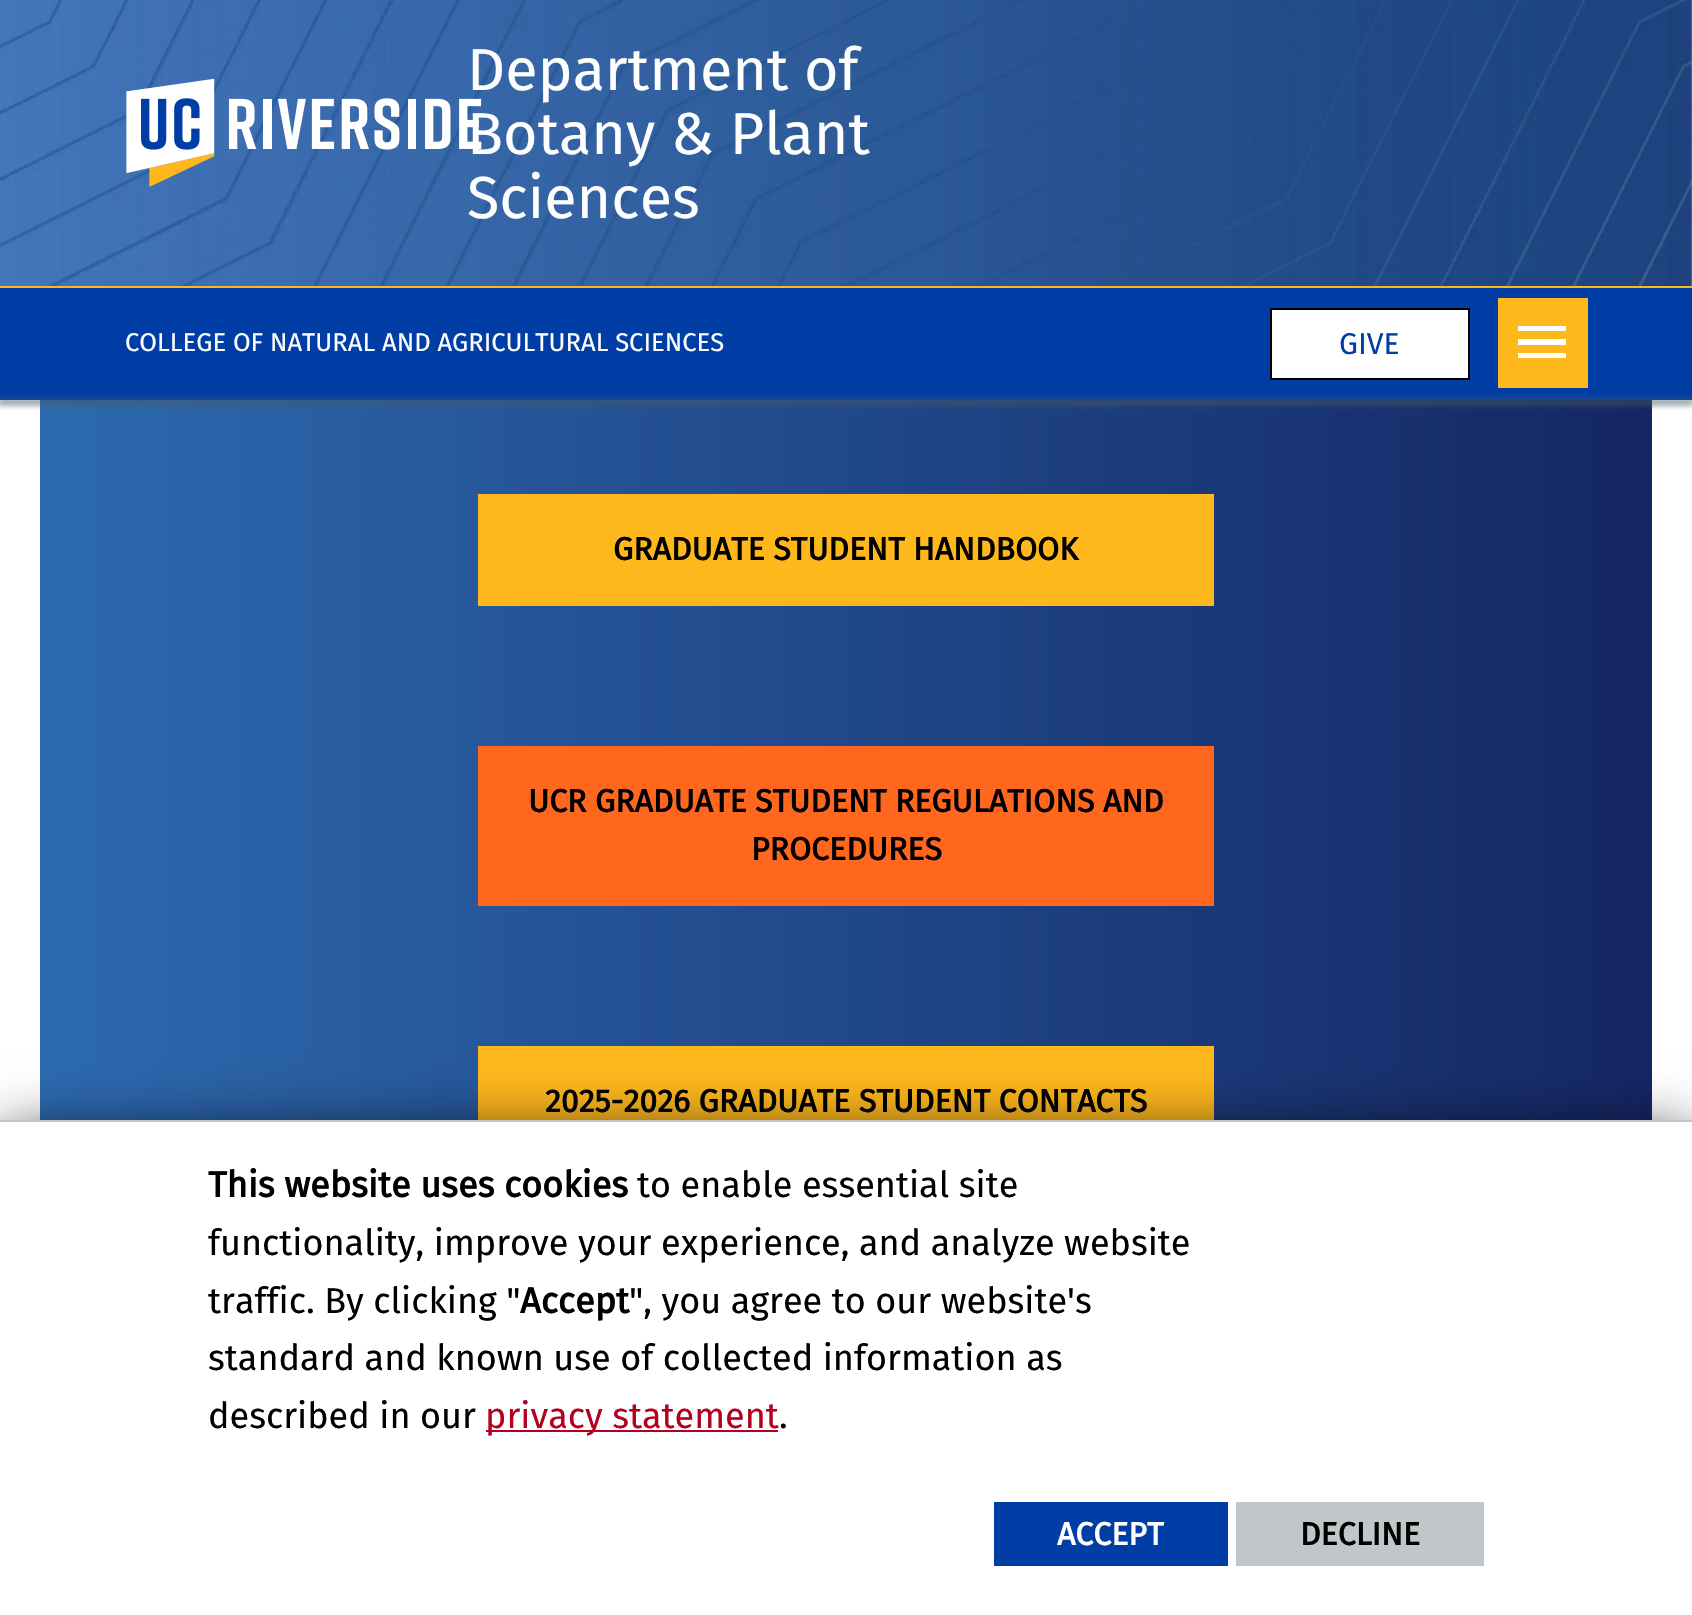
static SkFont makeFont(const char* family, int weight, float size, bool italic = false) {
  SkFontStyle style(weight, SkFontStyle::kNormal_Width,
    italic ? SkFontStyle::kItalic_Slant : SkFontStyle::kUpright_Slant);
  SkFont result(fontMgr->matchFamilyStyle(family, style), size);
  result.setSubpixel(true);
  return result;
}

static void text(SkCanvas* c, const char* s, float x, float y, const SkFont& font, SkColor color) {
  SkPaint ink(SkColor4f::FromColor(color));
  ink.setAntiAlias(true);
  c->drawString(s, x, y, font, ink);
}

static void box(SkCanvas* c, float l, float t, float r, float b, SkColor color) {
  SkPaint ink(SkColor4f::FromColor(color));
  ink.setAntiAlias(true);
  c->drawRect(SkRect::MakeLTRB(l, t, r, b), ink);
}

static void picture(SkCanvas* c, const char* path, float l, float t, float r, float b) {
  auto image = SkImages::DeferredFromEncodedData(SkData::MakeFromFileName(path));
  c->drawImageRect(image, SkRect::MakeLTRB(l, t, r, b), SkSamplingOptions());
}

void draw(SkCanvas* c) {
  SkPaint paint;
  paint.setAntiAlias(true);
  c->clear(0xffffffff);
  picture(c, "img_01.png", 0, 0, 1692, 286);
  box(c, 0, 286, 1692, 288, 0xffffb81c);
  picture(c, "img_02.png", 126, 78, 482, 187);
  SkFont face1 = makeFont("Fira Sans", 400, 59.25f);
  text(c, "Department of", 467, 90, face1, 0xfffefefe);
  text(c, "Botany & Plant", 467, 154, face1, 0xfffefefe);
  text(c, "Sciences", 467, 218, face1, 0xfffefefe);
  box(c, 0, 288, 1692, 400, 0xff003da5);
  SkFont face2 = makeFont("Fira Sans", 400, 25.6f);
  text(c, "COLLEGE OF NATURAL AND AGRICULTURAL SCIENCES", 125, 351, face2, 0xfffefefe);
  paint.setColor(0xffffffff);
  c->drawRect(SkRect::MakeLTRB(1271, 309, 1469, 379), paint);
  paint.setStyle(SkPaint::kStroke_Style);
  paint.setStrokeWidth(2);
  paint.setColor(0xff000000);
  c->drawRect(SkRect::MakeLTRB(1271, 309, 1469, 379), paint);
  SkFont face3 = makeFont("Fira Sans", 400, 30);
  text(c, "GIVE", 1339, 354, face3, 0xff003da5);
  box(c, 1498, 298, 1588, 388, 0xffffb81c);
  paint.setStyle(SkPaint::kFill_Style);
  paint.setColor(0xfffefefe);
  c->drawPath(SkPathBuilder().moveTo(1518, 326).lineTo(1566, 326).lineTo(1566, 331).lineTo(1518, 331).close().moveTo(1518, 339).lineTo(1566, 339).lineTo(1566, 345).lineTo(1518, 345).close().moveTo(1518, 353).lineTo(1566, 353).lineTo(1566, 358).lineTo(1518, 358).close().detach(), paint);
  {
    const SkColor colors[] = {0xff2d6ab0, 0xff142663};
    const float stops[] = {0, 1};
    const SkPoint ends[] = {{40, 952}, {1652, 952}};
    paint.setShader(SkGradientShader::MakeLinear(ends, colors, stops, 2, SkTileMode::kClamp));
    paint.setAlpha(255);
  }
  c->drawRect(SkRect::MakeLTRB(40, 400, 1652, 1120), paint);
  paint.setShader(nullptr);
  paint.setColor(0xff455a64);
  paint.setMaskFilter(SkMaskFilter::MakeBlur(kNormal_SkBlurStyle, 3));
  c->drawRect(SkRect::MakeLTRB(-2, 400, 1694, 404), paint);
  paint.setMaskFilter(nullptr);
  box(c, 478, 494, 1214, 606, 0xffffb81c);
  SkFont face4 = makeFont("Fira Sans", 700, 32);
  text(c, "GRADUATE STUDENT HANDBOOK", 613, 560, face4, 0xff000000);
  box(c, 478, 746, 1214, 906, 0xffff671f);
  text(c, "UCR GRADUATE STUDENT REGULATIONS AND", 528, 812, face4, 0xff000000);
  text(c, "PROCEDURES", 751, 860, face4, 0xff000000);
  box(c, 478, 1046, 1214, 1120, 0xffffb81c);
  text(c, "2025-2026 GRADUATE STUDENT CONTACTS", 545, 1112, face4, 0xff000000);
  paint.setColor(0xff020203);
  paint.setMaskFilter(SkMaskFilter::MakeBlur(kNormal_SkBlurStyle, 30));
  c->drawRect(SkRect::MakeLTRB(0, 1140, 1692, 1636), paint);
  paint.setMaskFilter(nullptr);
  box(c, 0, 1122, 1692, 1615, 0xffffffff);
  box(c, 0, 1120, 1692, 1122, 0xffc1c6c8);
  SkFont face5 = makeFont("Fira Sans", 700, 36);
  text(c, "This website uses cookies", 208, 1197, face5, 0xff000000);
  SkFont face6 = makeFont("Fira Sans", 400, 36);
  text(c, "to enable essential site", 637, 1197, face6, 0xff000000);
  text(c, "functionality, improve your experience, and analyze website", 208, 1255, face6, 0xff000000);
  text(c, "traffic. By clicking \"", 208, 1313, face6, 0xff000000);
  text(c, "Accept", 520, 1313, face5, 0xff000000);
  text(c, "\", you agree to our website's", 629, 1313, face6, 0xff000000);
  text(c, "standard and known use of collected information as", 208, 1370, face6, 0xff000000);
  text(c, "described in our", 208, 1428, face6, 0xff000000);
  box(c, 486, 1430, 778, 1432, 0xffb4001f);
  text(c, "privacy statement", 485, 1428, face6, 0xffb4001f);
  text(c, ".", 779, 1428, face6, 0xff000000);
  box(c, 994, 1502, 1228, 1566, 0xff003da5);
  text(c, "ACCEPT", 1057, 1545, face4, 0xfffefefe);
  box(c, 1236, 1502, 1484, 1566, 0xffc1c6c8);
  text(c, "DECLINE", 1300, 1545, face4, 0xff000000);
}
